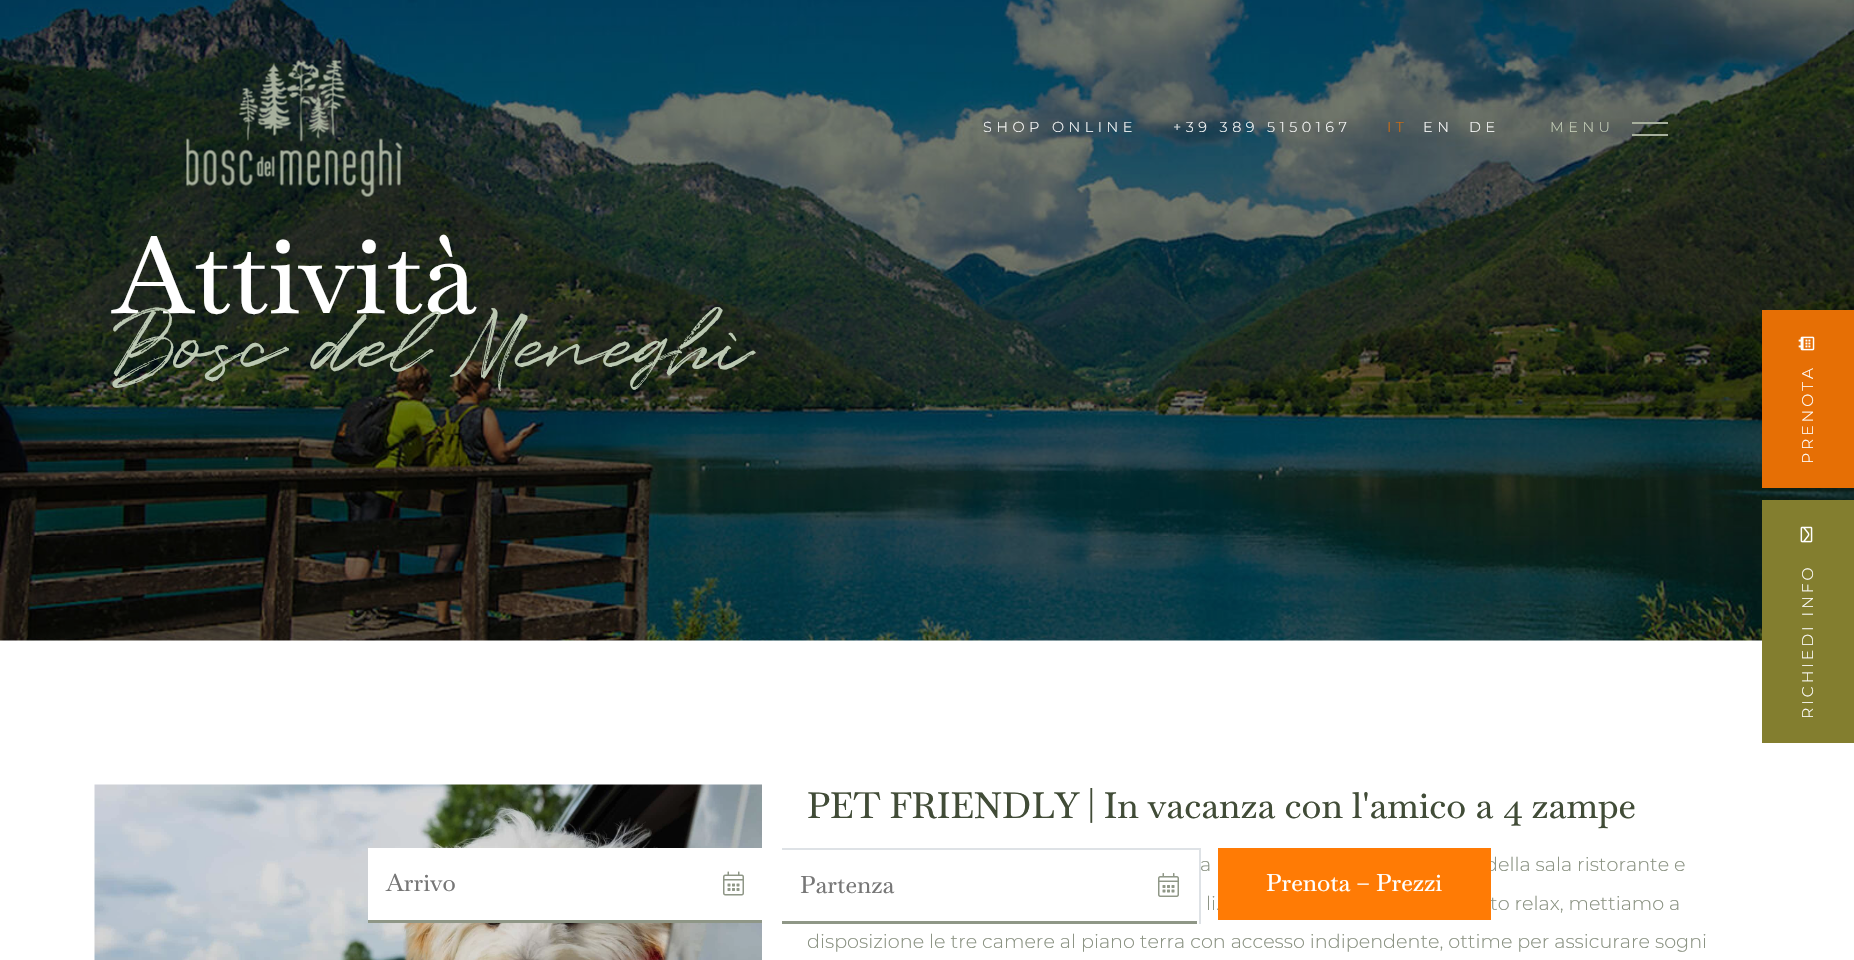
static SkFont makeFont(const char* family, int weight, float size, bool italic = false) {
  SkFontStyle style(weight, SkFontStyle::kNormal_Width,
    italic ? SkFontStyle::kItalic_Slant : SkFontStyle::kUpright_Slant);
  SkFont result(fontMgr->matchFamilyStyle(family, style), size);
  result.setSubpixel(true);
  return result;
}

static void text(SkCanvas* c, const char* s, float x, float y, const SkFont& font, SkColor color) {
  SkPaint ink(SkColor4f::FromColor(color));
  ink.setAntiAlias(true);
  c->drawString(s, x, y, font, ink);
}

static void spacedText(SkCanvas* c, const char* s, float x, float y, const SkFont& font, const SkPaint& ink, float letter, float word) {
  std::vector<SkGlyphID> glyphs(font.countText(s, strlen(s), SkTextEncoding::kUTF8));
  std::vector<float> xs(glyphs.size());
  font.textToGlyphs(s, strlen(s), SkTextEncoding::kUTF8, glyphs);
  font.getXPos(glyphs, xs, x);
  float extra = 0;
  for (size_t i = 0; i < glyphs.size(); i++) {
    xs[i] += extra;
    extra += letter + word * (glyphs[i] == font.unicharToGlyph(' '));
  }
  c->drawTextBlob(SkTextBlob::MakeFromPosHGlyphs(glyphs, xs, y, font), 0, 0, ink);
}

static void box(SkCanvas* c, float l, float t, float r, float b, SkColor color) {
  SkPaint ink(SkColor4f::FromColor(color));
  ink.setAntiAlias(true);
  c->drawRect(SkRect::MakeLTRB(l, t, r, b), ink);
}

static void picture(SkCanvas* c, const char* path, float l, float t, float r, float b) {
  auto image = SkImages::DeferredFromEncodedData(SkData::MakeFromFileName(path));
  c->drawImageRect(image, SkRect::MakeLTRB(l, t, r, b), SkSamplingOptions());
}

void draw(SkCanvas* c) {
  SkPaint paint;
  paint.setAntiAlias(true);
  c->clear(0xffffffff);
  picture(c, "img_01.png", 0, 0, 1854, 641);
  picture(c, "img_02.png", 186, 60, 403, 197);
  SkFont face1 = makeFont("Montserrat", 300, 14.4f);
  paint.setColor(0xffffffff);
  spacedText(c, "SHOP ONLINE", 983, 132, face1, paint, 4.5f, 0);
  spacedText(c, "+39 389 5150167", 1173, 132, face1, paint, 4.5f, 0);
  paint.setColor(0xffe56e04);
  spacedText(c, "IT", 1387, 132, face1, paint, 4.5f, 0);
  paint.setColor(0xffffffff);
  spacedText(c, "EN", 1423, 132, face1, paint, 4.5f, 0);
  spacedText(c, "DE", 1469, 132, face1, paint, 4.5f, 0);
  paint.setColor(0xffc5cfb9);
  spacedText(c, "MENU", 1550, 132, face1, paint, 4.5f, 0);
  box(c, 1632, 122, 1668, 124, 0xffa7b09d);
  box(c, 1632, 134, 1668, 136, 0xffa7b09d);
  SkFont face2 = makeFont("Baskervville", 500, 108);
  text(c, "Attività", 113, 313, face2, 0xffffffff);
  SkFont face3 = makeFont("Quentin", 400, 84);
  text(c, "Bosc del Meneghì", 113, 370, face3, 0xffbbc8b2);
  box(c, 1762, 310, 1854, 488, 0xffe66f05);
  picture(c, "img_03.png", 1798, 336, 1815, 351);
  SkFont face4 = makeFont("Montserrat", 300, 15.5f);
  paint.setColor(0xffffffff);
  c->save();
  c->rotate(-90, 1813, 464);
  spacedText(c, "PRENOTA", 1813, 464, face4, paint, 3, 0);
  c->restore();
  box(c, 1762, 500, 1854, 743, 0xff837e2f);
  picture(c, "img_04.png", 1800, 526, 1813, 543);
  c->save();
  c->rotate(-90, 1813, 719);
  spacedText(c, "RICHIEDI INFO", 1813, 719, face4, paint, 3, 0);
  c->restore();
  picture(c, "img_05.png", 94, 784, 762, 960);
  SkFont face5 = makeFont("Baskervville", 500, 36);
  text(c, "PET FRIENDLY | In vacanza con l'amico a 4 zampe", 807, 818, face5, 0xff414c37);
  SkFont face6 = makeFont("Montserrat", 300, 19.2f);
  text(c, "a", 1200, 871, face6, 0xff899181);
  text(c, "della sala ristorante e", 1485, 871, face6, 0xff899181);
  text(c, "li.", 1206, 910, face6, 0xff899181);
  text(c, "to relax, mettiamo a", 1490, 910, face6, 0xff899181);
  text(c, "disposizione le tre camere al piano terra con accesso indipendente, ottime per assicurare sogni", 807, 948, face6, 0xff899181);
  box(c, 368, 848, 762, 923, 0xffffffff);
  box(c, 368, 920, 762, 923, 0xff8f9787);
  picture(c, "img_06.png", 723, 871, 744, 896);
  SkFont face7 = makeFont("Baskervville", 500, 24);
  text(c, "Arrivo", 386, 891, face7, 0xff777777);
  box(c, 782, 848, 1200, 850, 0xffdee2e6);
  box(c, 1199, 848, 1201, 924, 0xffdee2e6);
  box(c, 782, 921, 1197, 924, 0xff8f9787);
  picture(c, "img_07.png", 1158, 873, 1179, 897);
  text(c, "Partenza", 800, 893, face7, 0xff777777);
  box(c, 1218, 848, 1491, 920, 0xffff7b05);
  text(c, "Prenota – Prezzi", 1266, 891, face7, 0xffffffff);
}
